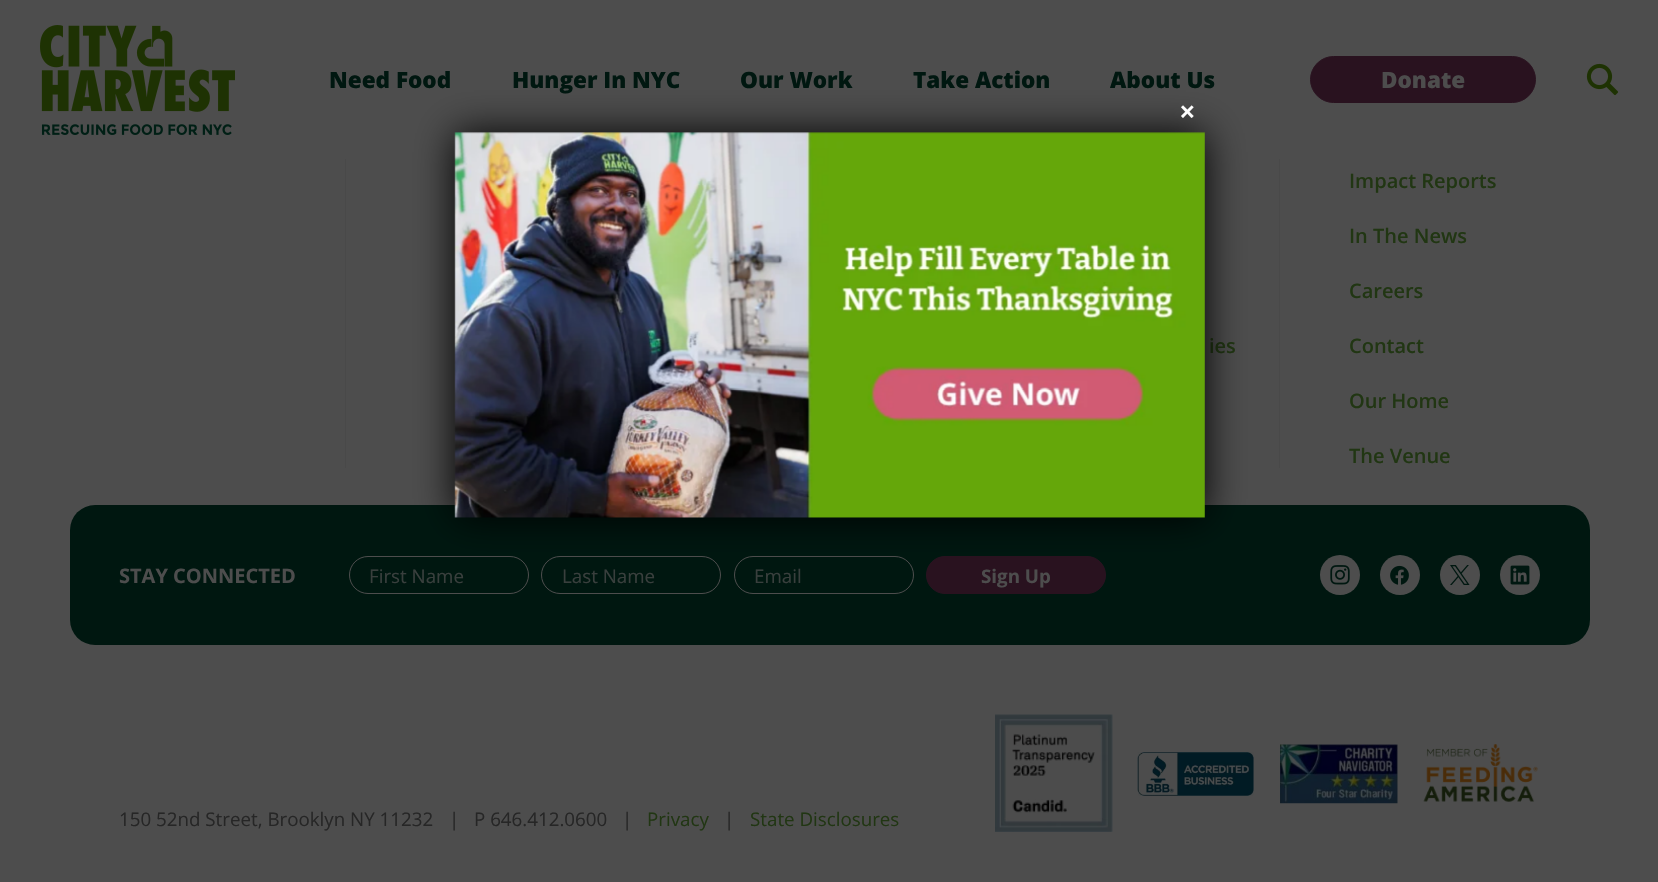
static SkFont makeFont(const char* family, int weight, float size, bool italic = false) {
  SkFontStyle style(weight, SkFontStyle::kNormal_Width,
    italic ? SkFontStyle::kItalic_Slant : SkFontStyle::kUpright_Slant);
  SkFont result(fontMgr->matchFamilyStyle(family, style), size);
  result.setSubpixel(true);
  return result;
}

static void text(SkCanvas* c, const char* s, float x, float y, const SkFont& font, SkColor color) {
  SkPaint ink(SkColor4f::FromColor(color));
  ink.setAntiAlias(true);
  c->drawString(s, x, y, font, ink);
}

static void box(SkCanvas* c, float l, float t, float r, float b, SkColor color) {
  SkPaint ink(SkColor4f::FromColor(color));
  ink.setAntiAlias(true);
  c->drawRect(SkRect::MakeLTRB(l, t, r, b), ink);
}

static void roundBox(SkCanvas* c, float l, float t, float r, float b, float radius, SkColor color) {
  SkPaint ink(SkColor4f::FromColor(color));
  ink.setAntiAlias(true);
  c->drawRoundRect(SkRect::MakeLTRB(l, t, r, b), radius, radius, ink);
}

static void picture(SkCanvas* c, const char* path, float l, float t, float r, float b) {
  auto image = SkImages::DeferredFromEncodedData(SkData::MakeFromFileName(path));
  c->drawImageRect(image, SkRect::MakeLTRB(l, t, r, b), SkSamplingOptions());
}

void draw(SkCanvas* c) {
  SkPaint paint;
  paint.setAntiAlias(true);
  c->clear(0xff4d4d4d);
  picture(c, "img_01.png", 40, 25, 235, 135);
  SkFont face1 = makeFont("Open Sans", 800, 22.5f);
  text(c, "Need Food", 329, 88, face1, 0xff001710);
  text(c, "Hunger In NYC", 512, 88, face1, 0xff001710);
  text(c, "Our Work", 740, 88, face1, 0xff001710);
  text(c, "Take Action", 913, 88, face1, 0xff001710);
  text(c, "About Us", 1110, 88, face1, 0xff001710);
  paint.setColor(0xff29121f);
  c->drawRoundRect(SkRect::MakeLTRB(1310.5f, 56.5f, 1535.5f, 102.5f), 23, 23, paint);
  paint.setStyle(SkPaint::kStroke_Style);
  paint.setStrokeWidth(1);
  c->drawRoundRect(SkRect::MakeLTRB(1310.5f, 56.5f, 1535.5f, 102.5f), 23, 23, paint);
  text(c, "Donate", 1381, 88, face1, 0xff4d4d4d);
  picture(c, "img_02.png", 1586, 63, 1619, 96);
  box(c, 345, 159, 346, 468, 0xff494949);
  SkFont face2 = makeFont("Open Sans", 600, 20);
  text(c, "ies", 1209, 353, face2, 0xff213613);
  box(c, 1279, 159, 1280, 468, 0xff494949);
  text(c, "Impact Reports", 1349, 188, face2, 0xff213613);
  text(c, "In The News", 1349, 243, face2, 0xff213613);
  text(c, "Careers", 1349, 298, face2, 0xff213613);
  text(c, "Contact", 1349, 353, face2, 0xff213613);
  text(c, "Our Home", 1349, 408, face2, 0xff213613);
  text(c, "The Venue", 1349, 463, face2, 0xff213613);
  roundBox(c, 70, 505, 1590, 645, 25, 0xff001710);
  SkFont face3 = makeFont("Open Sans", 700, 20);
  text(c, "STAY CONNECTED", 119, 583, face3, 0xff4d4d4d);
  paint.setColor(0xff4d4d4d);
  c->drawRoundRect(SkRect::MakeLTRB(349.5f, 556.5f, 528.5f, 593.5f), 18.5f, 18.5f, paint);
  SkFont face4 = makeFont("Open Sans", 400, 18.75f);
  text(c, "First Name", 369, 583, face4, 0xff393f3d);
  c->drawRoundRect(SkRect::MakeLTRB(541.5f, 556.5f, 720.5f, 593.5f), 18.5f, 18.5f, paint);
  text(c, "Last Name", 562, 583, face4, 0xff393f3d);
  c->drawRoundRect(SkRect::MakeLTRB(734.5f, 556.5f, 913.5f, 593.5f), 18.5f, 18.5f, paint);
  text(c, "Email", 754, 583, face4, 0xff393f3d);
  paint.setStyle(SkPaint::kFill_Style);
  paint.setColor(0xff29121f);
  c->drawRoundRect(SkRect::MakeLTRB(926.5f, 556.5f, 1105.5f, 593.5f), 18.5f, 18.5f, paint);
  paint.setStyle(SkPaint::kStroke_Style);
  c->drawRoundRect(SkRect::MakeLTRB(926.5f, 556.5f, 1105.5f, 593.5f), 18.5f, 18.5f, paint);
  SkFont face5 = makeFont("Open Sans", 700, 18.75f);
  text(c, "Sign Up", 981, 583, face5, 0xff4d4d4d);
  paint.setStyle(SkPaint::kFill_Style);
  paint.setColor(0xff4d4d4d);
  c->drawCircle(1340, 575, 20, paint);
  picture(c, "img_03.png", 1330, 565, 1350, 585);
  c->drawCircle(1400, 575, 20, paint);
  picture(c, "img_04.png", 1390, 565, 1409, 585);
  c->drawCircle(1460, 575, 20, paint);
  picture(c, "img_05.png", 1450, 565, 1470, 585);
  c->drawCircle(1520, 575, 20, paint);
  picture(c, "img_06.png", 1510, 565, 1530, 585);
  text(c, "150 52nd Street, Brooklyn NY 11232", 119, 826, face4, 0xff262626);
  text(c, "|", 449, 826, face4, 0xff262626);
  text(c, "P 646.412.0600", 474, 826, face4, 0xff262626);
  text(c, "|", 622, 826, face4, 0xff262626);
  text(c, "Privacy", 647, 826, face4, 0xff213613);
  text(c, "|", 724, 826, face4, 0xff262626);
  text(c, "State Disclosures", 750, 826, face4, 0xff213613);
  picture(c, "img_07.png", 995, 714, 1113, 832);
  picture(c, "img_08.png", 1137, 752, 1254, 796);
  picture(c, "img_09.png", 1280, 744, 1398, 804);
  picture(c, "img_10.png", 1423, 744, 1538, 802);
  paint.setColor(0xff000000);
  paint.setMaskFilter(SkMaskFilter::MakeBlur(kNormal_SkBlurStyle, 19));
  c->drawRect(SkRect::MakeLTRB(455, 133, 1205, 518), paint);
  paint.setMaskFilter(nullptr);
  picture(c, "img_11.png", 454, 132, 1205, 518);
  SkFont face6 = makeFont("Liberation Sans", 700, 25);
  text(c, "×", 1180, 120, face6, 0xffffffff);
}
